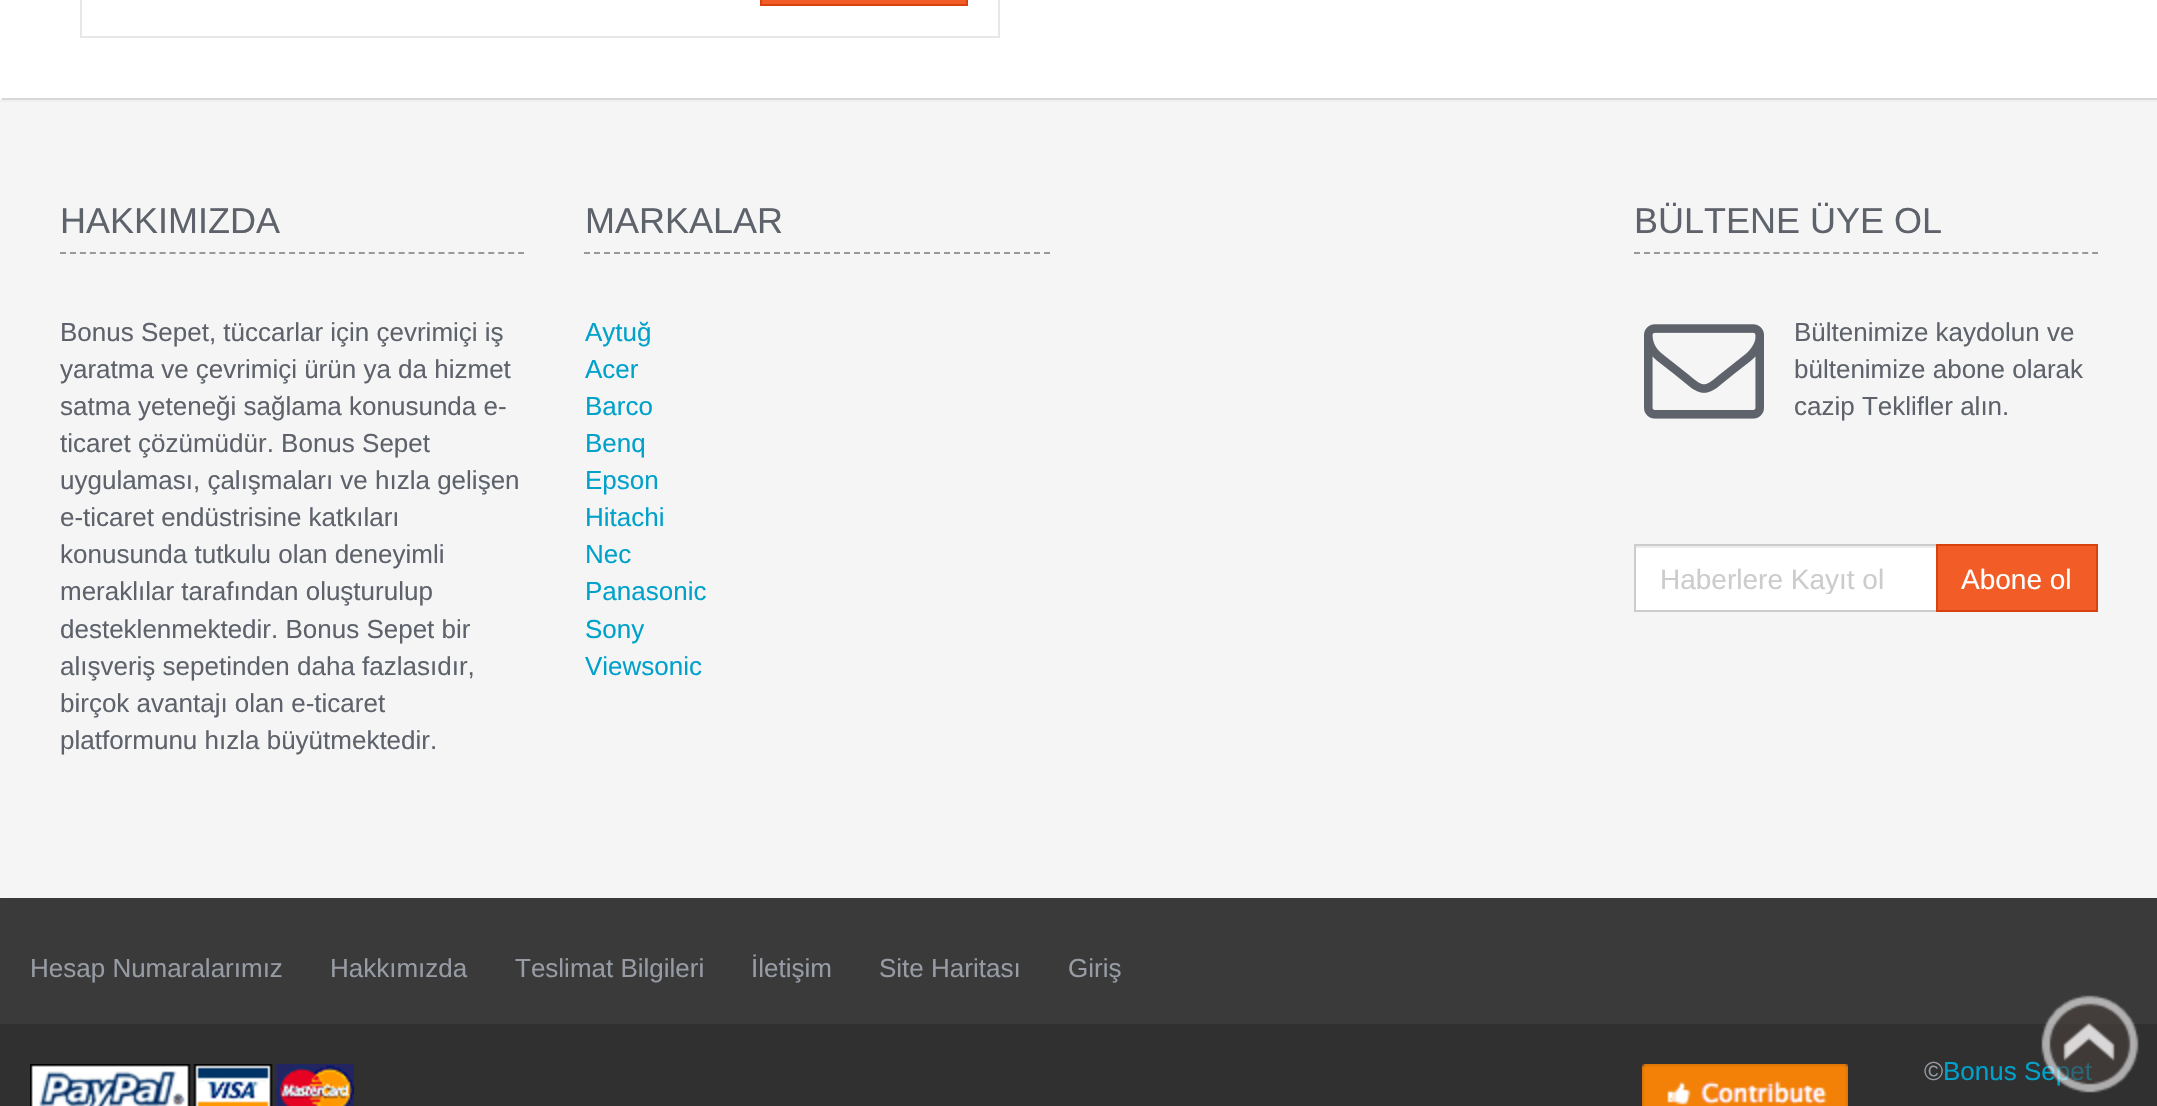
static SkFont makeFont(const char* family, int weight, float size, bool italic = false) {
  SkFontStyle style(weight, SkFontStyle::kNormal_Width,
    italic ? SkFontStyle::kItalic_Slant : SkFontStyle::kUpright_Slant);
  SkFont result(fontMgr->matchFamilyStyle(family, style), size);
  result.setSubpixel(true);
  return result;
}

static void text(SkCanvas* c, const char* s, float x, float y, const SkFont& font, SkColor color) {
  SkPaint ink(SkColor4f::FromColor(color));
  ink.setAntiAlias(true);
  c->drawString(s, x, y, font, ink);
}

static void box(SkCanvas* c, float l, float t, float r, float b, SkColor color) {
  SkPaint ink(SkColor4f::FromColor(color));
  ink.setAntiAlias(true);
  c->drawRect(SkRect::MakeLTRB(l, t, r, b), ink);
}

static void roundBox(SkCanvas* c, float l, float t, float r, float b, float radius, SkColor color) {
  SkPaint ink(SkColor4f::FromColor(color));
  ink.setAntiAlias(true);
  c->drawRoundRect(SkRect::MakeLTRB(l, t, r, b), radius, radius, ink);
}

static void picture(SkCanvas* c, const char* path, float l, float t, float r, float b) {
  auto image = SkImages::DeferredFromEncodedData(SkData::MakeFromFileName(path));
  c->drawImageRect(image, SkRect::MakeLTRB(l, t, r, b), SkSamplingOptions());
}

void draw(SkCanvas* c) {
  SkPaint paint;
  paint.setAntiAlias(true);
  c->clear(0xffffffff);
  paint.setStyle(SkPaint::kStroke_Style);
  paint.setStrokeWidth(2);
  paint.setColor(0xffe7e7e7);
  c->drawRect(SkRect::MakeLTRB(81, -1, 999, 37), paint);
  paint.setStyle(SkPaint::kFill_Style);
  paint.setColor(0xfff25c27);
  c->drawRect(SkRect::MakeLTRB(761, -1, 967, 5), paint);
  paint.setStyle(SkPaint::kStroke_Style);
  paint.setColor(0xffd8420e);
  c->drawRect(SkRect::MakeLTRB(761, -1, 967, 5), paint);
  roundBox(c, 0, 98, 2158, 898, 2, 0xfff5f5f5);
  paint.setStyle(SkPaint::kFill_Style);
  paint.setColor(0xffefefef);
  c->drawPath(SkPathBuilder().moveTo(2156, 100).lineTo(0, 100).lineTo(0, 102).lineTo(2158, 102).lineTo(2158, 100).close().detach(), paint);
  box(c, 2, 98, 2157, 100, 0xffd7d8da);
  paint.setStyle(SkPaint::kStroke_Style);
  paint.setColor(0xff999999);
  paint.setPathEffect(SkDashPathEffect::Make({{6, 3.96f}}, 0));
  c->drawPath(SkPathBuilder().moveTo(60, 253).lineTo(524, 253).detach(), paint);
  paint.setPathEffect(nullptr);
  SkFont face1 = makeFont("Liberation Sans", 400, 36);
  text(c, "HAKKIMIZDA", 60, 233, face1, 0xff5e626b);
  SkFont face2 = makeFont("Liberation Sans", 400, 26);
  text(c, "Bonus Sepet, tüccarlar için çevrimiçi iş", 60, 341, face2, 0xff5e626b);
  text(c, "yaratma ve çevrimiçi ürün ya da hizmet", 60, 378, face2, 0xff5e626b);
  text(c, "satma yeteneği sağlama konusunda e-", 60, 415, face2, 0xff5e626b);
  text(c, "ticaret çözümüdür. Bonus Sepet", 60, 452, face2, 0xff5e626b);
  text(c, "uygulaması, çalışmaları ve hızla gelişen", 60, 489, face2, 0xff5e626b);
  text(c, "e-ticaret endüstrisine katkıları", 60, 526, face2, 0xff5e626b);
  text(c, "konusunda tutkulu olan deneyimli", 60, 563, face2, 0xff5e626b);
  text(c, "meraklılar tarafından oluşturulup", 60, 600, face2, 0xff5e626b);
  text(c, "desteklenmektedir. Bonus Sepet bir", 60, 638, face2, 0xff5e626b);
  text(c, "alışveriş sepetinden daha fazlasıdır,", 60, 675, face2, 0xff5e626b);
  text(c, "birçok avantajı olan e-ticaret", 60, 712, face2, 0xff5e626b);
  text(c, "platformunu hızla büyütmektedir.", 60, 749, face2, 0xff5e626b);
  paint.setPathEffect(SkDashPathEffect::Make({{6, 4}}, 0));
  c->drawPath(SkPathBuilder().moveTo(584, 253).lineTo(1050, 253).detach(), paint);
  paint.setPathEffect(nullptr);
  text(c, "MARKALAR", 585, 233, face1, 0xff5e626b);
  text(c, "Aytuğ", 585, 341, face2, 0xff00a1cb);
  text(c, "Acer", 585, 378, face2, 0xff00a1cb);
  text(c, "Barco", 585, 415, face2, 0xff00a1cb);
  text(c, "Benq", 585, 452, face2, 0xff00a1cb);
  text(c, "Epson", 585, 489, face2, 0xff00a1cb);
  text(c, "Hitachi", 585, 526, face2, 0xff00a1cb);
  text(c, "Nec", 585, 563, face2, 0xff00a1cb);
  text(c, "Panasonic", 585, 600, face2, 0xff00a1cb);
  text(c, "Sony", 585, 638, face2, 0xff00a1cb);
  text(c, "Viewsonic", 585, 675, face2, 0xff00a1cb);
  paint.setPathEffect(SkDashPathEffect::Make({{6, 3.96f}}, 0));
  c->drawPath(SkPathBuilder().moveTo(1634, 253).lineTo(2098, 253).detach(), paint);
  paint.setPathEffect(nullptr);
  text(c, "BÜLTENE ÜYE OL", 1634, 233, face1, 0xff5e626b);
  picture(c, "img_01.png", 1644, 324, 1764, 419);
  text(c, "Bültenimize kaydolun ve", 1794, 341, face2, 0xff5e626b);
  text(c, "bültenimize abone olarak", 1794, 378, face2, 0xff5e626b);
  text(c, "cazip Teklifler alın.", 1794, 415, face2, 0xff5e626b);
  box(c, 1636, 548, 1936, 610, 0xffffffff);
  box(c, 1636, 546, 1936, 548, 0xffececec);
  paint.setColor(0xffcccccc);
  c->drawRect(SkRect::MakeLTRB(1635, 545, 1937, 611), paint);
  c->save();
  c->clipRect(SkRect::MakeLTRB(1660, 562, 1912, 594));
  SkFont face3 = makeFont("Liberation Sans", 400, 28);
  text(c, "Haberlere Kayıt ol", 1660, 589, face3, 0xffcccccc);
  c->restore();
  paint.setStyle(SkPaint::kFill_Style);
  paint.setColor(0xfff25c27);
  c->drawRect(SkRect::MakeLTRB(1937, 545, 2097, 611), paint);
  paint.setStyle(SkPaint::kStroke_Style);
  paint.setColor(0xffd8420e);
  c->drawRect(SkRect::MakeLTRB(1937, 545, 2097, 611), paint);
  text(c, "Abone ol", 1961, 589, face3, 0xffffffff);
  box(c, 0, 898, 2157, 1024, 0xff3a3a3a);
  text(c, "Hesap Numaralarımız", 30, 977, face2, 0xff969ba4);
  text(c, "Hakkımızda", 330, 977, face2, 0xff969ba4);
  text(c, "Teslimat Bilgileri", 515, 977, face2, 0xff969ba4);
  text(c, "İletişim", 751, 977, face2, 0xff969ba4);
  text(c, "Site Haritası", 879, 977, face2, 0xff969ba4);
  text(c, "Giriş", 1068, 977, face2, 0xff969ba4);
  box(c, 0, 1024, 2157, 1106, 0xff303030);
  text(c, "Bonus Sepet", 1943, 1080, face2, 0xff00a1cb);
  picture(c, "img_02.png", 2041, 995, 2139, 1093);
  picture(c, "img_03.png", 30, 1064, 354, 1106);
  picture(c, "img_04.png", 1642, 1064, 1848, 1106);
  text(c, "©", 1924, 1080, face2, 0xff969ba4);
}
